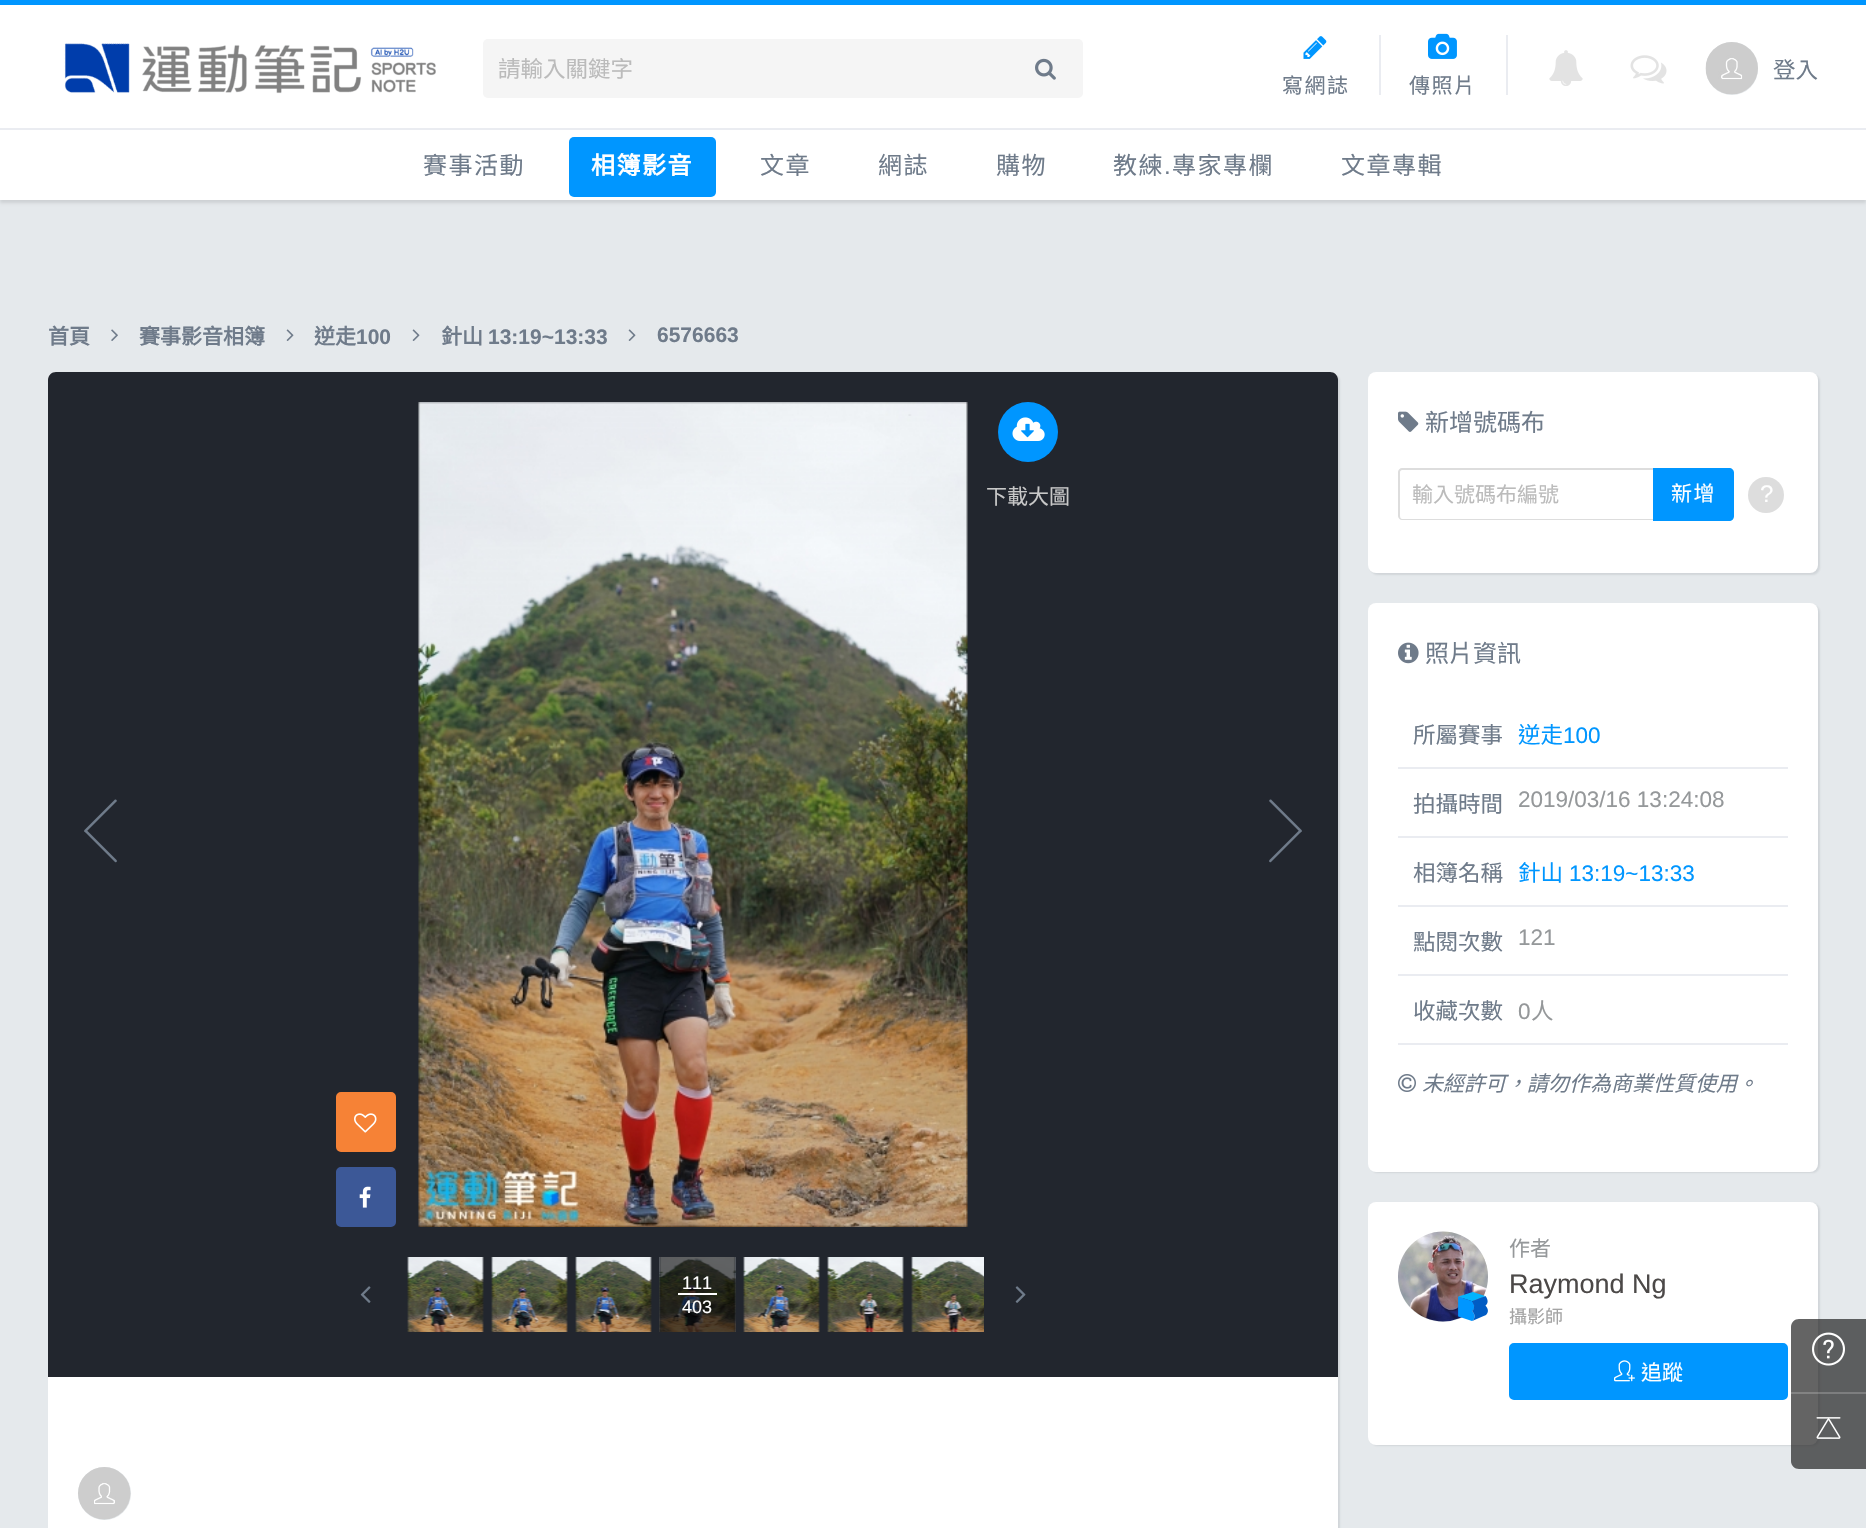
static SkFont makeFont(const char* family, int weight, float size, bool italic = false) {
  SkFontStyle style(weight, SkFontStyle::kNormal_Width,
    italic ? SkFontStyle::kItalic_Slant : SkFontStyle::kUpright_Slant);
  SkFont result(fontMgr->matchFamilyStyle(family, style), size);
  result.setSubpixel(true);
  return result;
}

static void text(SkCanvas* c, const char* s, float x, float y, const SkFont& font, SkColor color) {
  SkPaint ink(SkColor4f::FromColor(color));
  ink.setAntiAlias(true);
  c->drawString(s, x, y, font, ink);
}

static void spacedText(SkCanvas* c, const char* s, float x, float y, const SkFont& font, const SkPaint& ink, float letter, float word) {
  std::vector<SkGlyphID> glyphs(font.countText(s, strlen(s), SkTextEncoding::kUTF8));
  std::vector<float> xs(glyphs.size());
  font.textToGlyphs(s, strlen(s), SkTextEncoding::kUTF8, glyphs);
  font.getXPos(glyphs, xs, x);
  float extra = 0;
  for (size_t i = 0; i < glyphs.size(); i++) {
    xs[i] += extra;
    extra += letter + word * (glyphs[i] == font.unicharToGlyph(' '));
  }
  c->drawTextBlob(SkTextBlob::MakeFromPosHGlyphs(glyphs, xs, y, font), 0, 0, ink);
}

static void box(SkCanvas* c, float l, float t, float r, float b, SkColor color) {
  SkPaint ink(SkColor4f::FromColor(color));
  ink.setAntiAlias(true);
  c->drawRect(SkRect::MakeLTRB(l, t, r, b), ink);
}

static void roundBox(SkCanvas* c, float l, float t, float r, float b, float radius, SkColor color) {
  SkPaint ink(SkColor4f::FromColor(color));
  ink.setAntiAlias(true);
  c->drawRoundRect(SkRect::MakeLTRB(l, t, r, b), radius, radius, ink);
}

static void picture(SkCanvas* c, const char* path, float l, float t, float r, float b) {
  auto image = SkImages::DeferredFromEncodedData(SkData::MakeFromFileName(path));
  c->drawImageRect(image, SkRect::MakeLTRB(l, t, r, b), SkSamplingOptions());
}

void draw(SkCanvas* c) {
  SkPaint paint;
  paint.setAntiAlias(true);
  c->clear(0xffe5e9ec);
  box(c, 0, 0, 1866, 5, 0xff0096ff);
  paint.setColor(0x1a000000);
  paint.setMaskFilter(SkMaskFilter::MakeBlur(kNormal_SkBlurStyle, 1.5f));
  c->drawRect(SkRect::MakeLTRB(0, 8, 1866, 203), paint);
  paint.setMaskFilter(nullptr);
  box(c, 0, 5, 1866, 200, 0xffffffff);
  box(c, 0, 128, 1866, 130, 0xffeaecf1);
  picture(c, "img_01.png", 64, 43, 436, 94);
  roundBox(c, 483, 39, 1083, 98, 5, 0xfff5f5f5);
  SkFont face1 = makeFont("Noto Sans CJK TC", 400, 22.5f);
  text(c, "請輸入關鍵字", 498, 77, face1, 0xffbbbbbb);
  picture(c, "img_02.png", 1035, 58, 1056, 80);
  picture(c, "img_03.png", 1549, 50, 1583, 86);
  picture(c, "img_04.png", 1630, 55, 1667, 84);
  roundBox(c, 1706, 42, 1758, 95, 26, 0xffe5e9ec);
  picture(c, "img_05.png", 1705, 42, 1758, 95);
  text(c, "登入", 1773, 78, face1, 0xff6f7b8a);
  picture(c, "img_06.png", 1303, 36, 1327, 59);
  box(c, 1379, 35, 1381, 95, 0xffeaecf1);
  SkFont face2 = makeFont("Noto Sans CJK TC", 400, 21);
  paint.setColor(0xff6f7b8a);
  spacedText(c, "寫網誌", 1282, 93, face2, paint, 1.5f, 0);
  picture(c, "img_07.png", 1428, 33, 1457, 59);
  box(c, 1506, 35, 1508, 95, 0xffeaecf1);
  spacedText(c, "傳照片", 1409, 93, face2, paint, 1.5f, 0);
  SkFont face3 = makeFont("Noto Sans CJK TC", 400, 24);
  spacedText(c, "賽事活動", 423, 174, face3, paint, 1.5f, 0);
  roundBox(c, 569, 137, 716, 197, 5, 0xff0096ff);
  SkFont face4 = makeFont("Noto Sans CJK TC", 700, 24);
  paint.setColor(0xffffffff);
  spacedText(c, "相簿影音", 591, 174, face4, paint, 1.5f, 0);
  paint.setColor(0xff6f7b8a);
  spacedText(c, "文章", 760, 174, face3, paint, 1.5f, 0);
  spacedText(c, "網誌", 878, 174, face3, paint, 1.5f, 0);
  spacedText(c, "購物", 996, 174, face3, paint, 1.5f, 0);
  spacedText(c, "教練", 1113, 174, face3, paint, 1.5f, 0);
  SkFont face5 = makeFont("Liberation Sans", 400, 24);
  spacedText(c, ".", 1164, 174, face5, paint, 1.5f, 0);
  spacedText(c, "專家專欄", 1172, 174, face3, paint, 1.5f, 0);
  spacedText(c, "文章專輯", 1341, 174, face3, paint, 1.5f, 0);
  SkFont face6 = makeFont("Noto Sans CJK TC", 700, 21);
  text(c, "首頁", 48, 344, face6, 0xff6f7b8a);
  picture(c, "img_08.png", 111, 329, 118, 341);
  text(c, "賽事影音相簿", 139, 344, face6, 0xff6f7b8a);
  picture(c, "img_09.png", 286, 329, 294, 341);
  text(c, "逆走", 314, 344, face6, 0xff6f7b8a);
  SkFont face7 = makeFont("Liberation Sans", 700, 21);
  text(c, "100", 356, 344, face7, 0xff6f7b8a);
  picture(c, "img_09.png", 412, 329, 420, 341);
  text(c, "針山", 441, 344, face6, 0xff6f7b8a);
  text(c, "13:19~13:33", 488, 344, face7, 0xff6f7b8a);
  picture(c, "img_09.png", 628, 329, 636, 341);
  text(c, "6576663", 657, 342, face7, 0xff6f7b8a);
  paint.setColor(0x1a22262e);
  paint.setMaskFilter(SkMaskFilter::MakeBlur(kNormal_SkBlurStyle, 1));
  c->drawRoundRect(SkRect::MakeLTRB(50, 374, 1340, 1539), 8, 8, paint);
  paint.setMaskFilter(nullptr);
  roundBox(c, 48, 372, 1338, 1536, 8, 0xffffffff);
  paint.setColor(0xff22262e);
  c->drawPath(SkPathBuilder().moveTo(56, 372).lineTo(1330, 372).cubicTo(1334.5f, 372, 1338, 375.5f, 1338, 380).lineTo(1338, 1377).lineTo(48, 1377).lineTo(48, 380).cubicTo(48, 375.5f, 51.5f, 372, 56, 372).close().detach(), paint);
  picture(c, "img_10.png", 418, 402, 968, 1227);
  paint.setColor(0xff0096ff);
  c->drawCircle(1028, 432, 30, paint);
  picture(c, "img_11.png", 1012, 417, 1045, 441);
  text(c, "下載大圖", 986, 504, face2, 0xffc8c8c8);
  paint.setColor(0xfff68236);
  c->drawRoundRect(SkRect::MakeLTRB(337, 1093, 395, 1151), 4, 4, paint);
  paint.setStyle(SkPaint::kStroke_Style);
  paint.setStrokeWidth(2);
  c->drawRoundRect(SkRect::MakeLTRB(337, 1093, 395, 1151), 4, 4, paint);
  picture(c, "img_12.png", 354, 1113, 377, 1133);
  paint.setStyle(SkPaint::kFill_Style);
  paint.setColor(0xff3c5897);
  c->drawRoundRect(SkRect::MakeLTRB(337, 1168, 395, 1226), 4, 4, paint);
  paint.setStyle(SkPaint::kStroke_Style);
  c->drawRoundRect(SkRect::MakeLTRB(337, 1168, 395, 1226), 4, 4, paint);
  picture(c, "img_13.png", 359, 1186, 371, 1208);
  paint.setStyle(SkPaint::kFill_Style);
  paint.setColor(0xff6f7b8a);
  c->drawPath(SkPathBuilder().moveTo(114.5f, 800).lineTo(84.5f, 830).lineTo(84.5f, 831.5f).cubicTo(84.5f, 832, 85.5f, 832.5f, 86, 832).lineTo(116.5f, 801.5f).cubicTo(117.5f, 800, 115.5f, 799, 114.5f, 800).close().detach(), paint);
  c->drawPath(SkPathBuilder().moveTo(116.5f, 860).lineTo(86.5f, 830).lineTo(85, 830).cubicTo(84.5f, 830, 84, 831, 84.5f, 831.5f).lineTo(115, 862).cubicTo(116.5f, 863, 117.5f, 861, 116.5f, 860).close().detach(), paint);
  c->drawPath(SkPathBuilder().moveTo(1271.5f, 800).lineTo(1301.5f, 830).lineTo(1301.5f, 831.5f).cubicTo(1301.5f, 832, 1300.5f, 832.5f, 1300, 832).lineTo(1269.5f, 801.5f).cubicTo(1268.5f, 800, 1270.5f, 799, 1271.5f, 800).close().detach(), paint);
  c->drawPath(SkPathBuilder().moveTo(1269.5f, 860).lineTo(1299.5f, 830).lineTo(1301, 830).cubicTo(1301.5f, 830, 1302, 831, 1301.5f, 831.5f).lineTo(1271, 862).cubicTo(1269.5f, 863, 1268.5f, 861, 1269.5f, 860).close().detach(), paint);
  picture(c, "img_14.png", 360, 1286, 371, 1303);
  picture(c, "img_15.png", 407, 1257, 484, 1332);
  picture(c, "img_16.png", 491, 1257, 568, 1332);
  picture(c, "img_17.png", 575, 1257, 652, 1332);
  picture(c, "img_18.png", 659, 1257, 736, 1332);
  SkFont face8 = makeFont("Liberation Sans", 400, 18);
  text(c, "111", 682, 1289, face8, 0xffffffff);
  box(c, 678, 1293, 717, 1295, 0xffffffff);
  text(c, "403", 682, 1313, face8, 0xffffffff);
  picture(c, "img_19.png", 743, 1257, 820, 1332);
  picture(c, "img_20.png", 827, 1257, 904, 1332);
  picture(c, "img_21.png", 911, 1257, 984, 1332);
  picture(c, "img_22.png", 1015, 1286, 1026, 1303);
  paint.setColor(0xffe5e9ec);
  c->drawCircle(104.5f, 1493.5f, 26.5f, paint);
  picture(c, "img_23.png", 78, 1467, 131, 1520);
  paint.setColor(0x1a22262e);
  paint.setMaskFilter(SkMaskFilter::MakeBlur(kNormal_SkBlurStyle, 1));
  c->drawRoundRect(SkRect::MakeLTRB(1370, 374, 1820, 575), 8, 8, paint);
  paint.setMaskFilter(nullptr);
  roundBox(c, 1368, 372, 1818, 573, 8, 0xffffffff);
  picture(c, "img_24.png", 1398, 411, 1419, 432);
  text(c, "新增號碼布", 1425, 431, face3, 0xff6f7b8a);
  paint.setColor(0xffdddddd);
  c->drawPath(SkPathBuilder(SkPathFillType::kEvenOdd).moveTo(1402, 468).lineTo(1653, 468).lineTo(1653, 520).lineTo(1402, 520).cubicTo(1400, 520, 1398, 518, 1398, 516).lineTo(1398, 472).cubicTo(1398, 470, 1400, 468, 1402, 468).close().moveTo(1402, 470).lineTo(1653, 470).lineTo(1653, 519).lineTo(1402, 519).cubicTo(1401, 519, 1400, 518, 1400, 516).lineTo(1400, 472).cubicTo(1400, 471, 1401, 470, 1402, 470).close().detach(), paint);
  text(c, "輸入號碼布編號", 1412, 502, face2, 0xffbbbbbb);
  paint.setColor(0xff0096ff);
  c->drawPath(SkPathBuilder().moveTo(1653, 468).lineTo(1729, 468).cubicTo(1732, 468, 1734, 470, 1734, 473).lineTo(1734, 516).cubicTo(1734, 519, 1732, 521, 1729, 521).lineTo(1653, 521).close().detach(), paint);
  paint.setColor(0xffffffff);
  spacedText(c, "新增", 1671, 501, face2, paint, 1.5f, 0);
  paint.setColor(0xffdddddd);
  c->drawCircle(1766, 495, 18, paint);
  text(c, "?", 1760, 502, face5, 0xffffffff);
  paint.setColor(0x1a22262e);
  paint.setMaskFilter(SkMaskFilter::MakeBlur(kNormal_SkBlurStyle, 1));
  c->drawRoundRect(SkRect::MakeLTRB(1370, 605, 1820, 1173), 8, 8, paint);
  paint.setMaskFilter(nullptr);
  roundBox(c, 1368, 603, 1818, 1172, 8, 0xffffffff);
  picture(c, "img_25.png", 1398, 642, 1419, 664);
  text(c, "照片資訊", 1425, 662, face3, 0xff6f7b8a);
  box(c, 1398, 767, 1788, 769, 0xffeaecf1);
  text(c, "所屬賽事", 1413, 743, face1, 0xff6f7b8a);
  text(c, "逆走", 1518, 743, face1, 0xff0096ff);
  SkFont face9 = makeFont("Liberation Sans", 400, 22.5f);
  text(c, "100", 1563, 743, face9, 0xff0096ff);
  box(c, 1398, 836, 1788, 838, 0xffeaecf1);
  text(c, "拍攝時間", 1413, 812, face1, 0xff6f7b8a);
  text(c, "2019/03/16 13:24:08", 1518, 807, face9, 0xff95989a);
  box(c, 1398, 905, 1788, 907, 0xffeaecf1);
  text(c, "相簿名稱", 1413, 881, face1, 0xff6f7b8a);
  text(c, "針山", 1518, 881, face1, 0xff0096ff);
  text(c, "13:19~13:33", 1569, 881, face9, 0xff0096ff);
  box(c, 1398, 974, 1788, 976, 0xffeaecf1);
  text(c, "點閱次數", 1413, 950, face1, 0xff6f7b8a);
  text(c, "121", 1518, 945, face9, 0xff95989a);
  box(c, 1398, 1043, 1788, 1045, 0xffeaecf1);
  text(c, "收藏次數", 1413, 1019, face1, 0xff6f7b8a);
  text(c, "0", 1518, 1019, face9, 0xff95989a);
  text(c, "人", 1531, 1019, face1, 0xff95989a);
  picture(c, "img_26.png", 1398, 1074, 1416, 1092);
  SkFont face10 = makeFont("Noto Sans CJK TC", 400, 21, true);
  text(c, "未經許可，請勿作為商業性質使用。", 1422, 1091, face10, 0xff6f7b8a);
  paint.setMaskFilter(SkMaskFilter::MakeBlur(kNormal_SkBlurStyle, 1));
  c->drawRoundRect(SkRect::MakeLTRB(1370, 1203, 1820, 1446), 8, 8, paint);
  paint.setMaskFilter(nullptr);
  roundBox(c, 1368, 1202, 1818, 1445, 8, 0xffffffff);
  paint.setColor(0xffe5e9ec);
  c->drawCircle(1443, 1277, 45, paint);
  picture(c, "img_27.png", 1398, 1231, 1488, 1322);
  picture(c, "img_28.png", 1458, 1292, 1488, 1321);
  text(c, "作者", 1509, 1256, face2, 0xff95989a);
  SkFont face11 = makeFont("Liberation Sans", 400, 27);
  text(c, "Raymond Ng", 1509, 1293, face11, 0xff4c4948);
  SkFont face12 = makeFont("Noto Sans CJK TC", 400, 18);
  text(c, "攝影師", 1509, 1323, face12, 0xffa4a4a4);
  paint.setColor(0xff0096ff);
  c->drawRoundRect(SkRect::MakeLTRB(1510, 1344, 1787, 1399), 4, 4, paint);
  paint.setStyle(SkPaint::kStroke_Style);
  c->drawRoundRect(SkRect::MakeLTRB(1510, 1344, 1787, 1399), 4, 4, paint);
  picture(c, "img_29.png", 1614, 1360, 1635, 1382);
  text(c, "追蹤", 1641, 1380, face2, 0xffffffff);
  paint.setStyle(SkPaint::kFill_Style);
  paint.setColor(0xb3222222);
  c->drawPath(SkPathBuilder().moveTo(1799, 1319).lineTo(1866, 1319).lineTo(1866, 1469).lineTo(1799, 1469).cubicTo(1794.5f, 1469, 1791, 1465.5f, 1791, 1461).lineTo(1791, 1327).cubicTo(1791, 1322.5f, 1794.5f, 1319, 1799, 1319).close().detach(), paint);
  box(c, 1791, 1392, 1866, 1394, 0x33ffffff);
  picture(c, "img_30.png", 1812, 1332, 1845, 1366);
  picture(c, "img_31.png", 1816, 1417, 1841, 1439);
}
